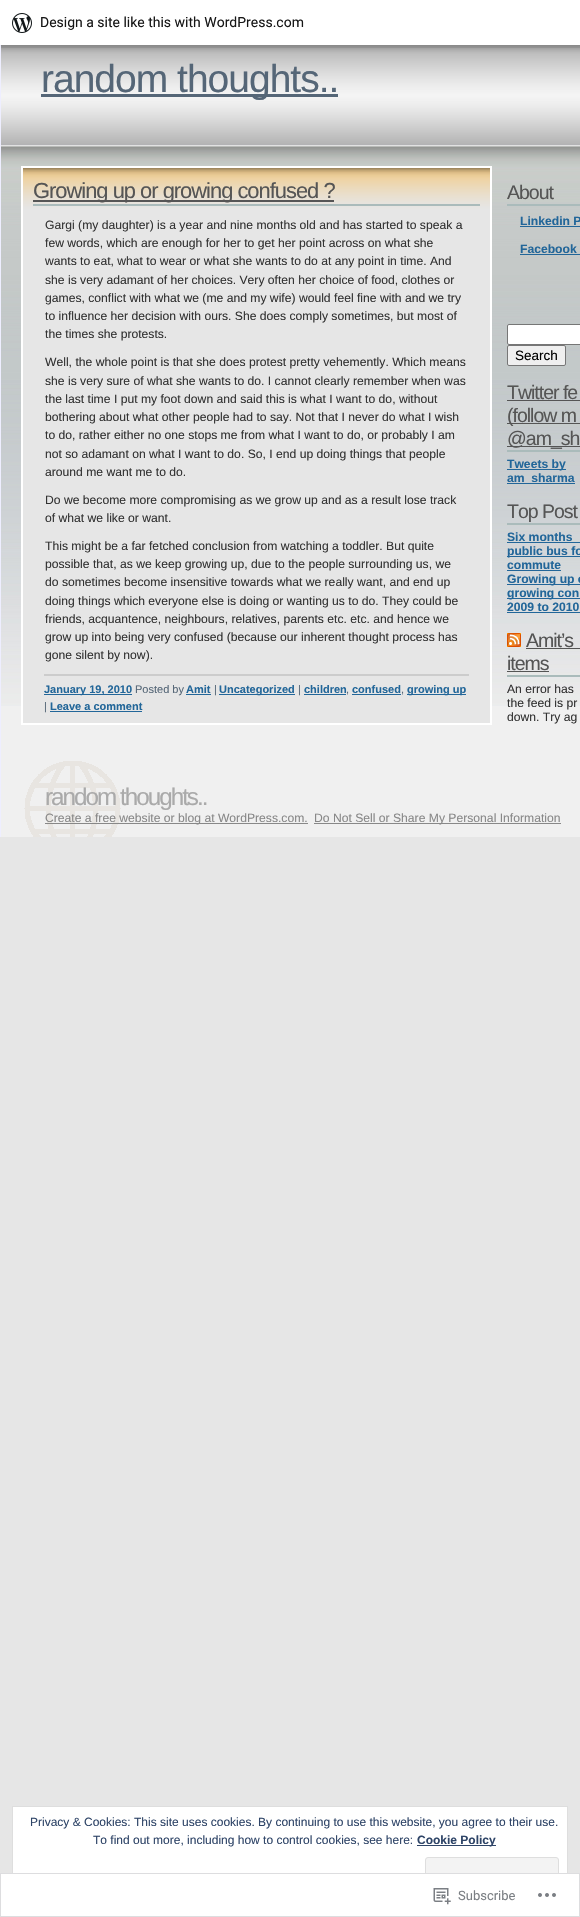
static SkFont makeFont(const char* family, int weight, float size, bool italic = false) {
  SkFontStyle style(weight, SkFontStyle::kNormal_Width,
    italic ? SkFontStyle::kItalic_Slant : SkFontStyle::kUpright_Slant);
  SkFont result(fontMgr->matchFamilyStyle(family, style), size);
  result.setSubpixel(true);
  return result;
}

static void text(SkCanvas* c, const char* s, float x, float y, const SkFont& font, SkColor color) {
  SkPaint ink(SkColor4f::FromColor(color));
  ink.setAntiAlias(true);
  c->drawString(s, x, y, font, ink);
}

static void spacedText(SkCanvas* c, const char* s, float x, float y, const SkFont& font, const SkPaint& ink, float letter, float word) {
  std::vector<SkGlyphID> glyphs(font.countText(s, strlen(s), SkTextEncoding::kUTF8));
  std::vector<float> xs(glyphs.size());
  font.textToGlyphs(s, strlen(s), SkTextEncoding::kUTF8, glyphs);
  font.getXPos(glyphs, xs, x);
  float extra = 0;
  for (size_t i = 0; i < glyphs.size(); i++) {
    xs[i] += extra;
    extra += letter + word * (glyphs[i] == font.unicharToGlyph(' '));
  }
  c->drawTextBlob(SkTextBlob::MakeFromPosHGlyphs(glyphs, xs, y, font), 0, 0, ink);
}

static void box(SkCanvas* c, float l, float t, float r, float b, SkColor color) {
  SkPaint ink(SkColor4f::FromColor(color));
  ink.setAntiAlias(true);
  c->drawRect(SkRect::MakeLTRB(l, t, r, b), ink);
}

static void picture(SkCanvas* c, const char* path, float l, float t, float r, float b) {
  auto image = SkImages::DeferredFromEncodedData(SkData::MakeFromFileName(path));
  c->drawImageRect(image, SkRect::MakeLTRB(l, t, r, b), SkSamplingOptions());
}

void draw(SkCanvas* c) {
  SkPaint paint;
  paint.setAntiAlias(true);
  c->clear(0xffe6e6e6);
  picture(c, "img_02.png", 1, 45, 580, 706);
  box(c, 0, 45, 1, 837, 0xffeeeeff);
  paint.setColor(0x0d000000);
  paint.setMaskFilter(SkMaskFilter::MakeBlur(kNormal_SkBlurStyle, 1));
  c->drawRect(SkRect::MakeLTRB(0, 1, 580, 46), paint);
  paint.setMaskFilter(nullptr);
  paint.setColor(0x14000000);
  c->drawPath(SkPathBuilder().moveTo(1, 45).lineTo(1, 48).lineTo(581, 48).lineTo(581, 3).lineTo(580, 3).lineTo(580, 45).close().detach(), paint);
  box(c, 0, 0, 580, 45, 0xffffffff);
  picture(c, "img_01.png", 12, 13, 32, 33);
  SkFont face1 = makeFont("Roboto", 400, 14);
  text(c, "Design a site like this with WordPress.com", 40, 27, face1, 0xff171717);
  box(c, 1, 706, 580, 837, 0xfff0f0f0);
  box(c, 41, 94, 338, 97, 0xff556677);
  SkFont face2 = makeFont("Liberation Sans", 400, 39);
  paint.setColor(0xff556677);
  spacedText(c, "random thoughts..", 41, 92, face2, paint, -1, 0);
  picture(c, "img_03.png", 24, 761, 121, 837);
  picture(c, "img_04.png", 23, 168, 490, 723);
  paint.setStyle(SkPaint::kStroke_Style);
  paint.setStrokeWidth(2);
  paint.setColor(0xffffffff);
  c->drawRect(SkRect::MakeLTRB(22, 167, 491, 724), paint);
  box(c, 33, 204, 480, 206, 0xffaabbbb);
  box(c, 33, 200, 334, 202, 0xff555555);
  SkFont face3 = makeFont("Liberation Sans", 400, 21.9f);
  paint.setStyle(SkPaint::kFill_Style);
  paint.setColor(0xff555555);
  spacedText(c, "Growing up or growing confused ?", 33, 198, face3, paint, -1, 0);
  SkFont face4 = makeFont("Liberation Sans", 400, 12.15f);
  text(c, "Gargi (my daughter) is a year and nine months old and has started to speak a", 45, 229, face4, 0xff333333);
  text(c, "few words, which are enough for her to get her point across on what she", 45, 247, face4, 0xff333333);
  text(c, "wants to eat, what to wear or what she wants to do at any point in time. And", 45, 265, face4, 0xff333333);
  text(c, "she is very adamant of her choices. Very often her choice of food, clothes or", 45, 284, face4, 0xff333333);
  text(c, "games, conflict with what we (me and my wife) would feel fine with and we try", 45, 302, face4, 0xff333333);
  text(c, "to influence her decision with ours. She does comply sometimes, but most of", 45, 320, face4, 0xff333333);
  text(c, "the times she protests.", 45, 338, face4, 0xff333333);
  text(c, "Well, the whole point is that she does protest pretty vehemently. Which means", 45, 366, face4, 0xff333333);
  text(c, "she is very sure of what she wants to do. I cannot clearly remember when was", 45, 385, face4, 0xff333333);
  text(c, "the last time I put my foot down and said this is what I want to do, without", 45, 403, face4, 0xff333333);
  text(c, "bothering about what other people had to say. Not that I never do what I wish", 45, 421, face4, 0xff333333);
  text(c, "to do, rather either no one stops me from what I want to do, or probably I am", 45, 439, face4, 0xff333333);
  text(c, "not so adamant on what I want to do. So, I end up doing things that people", 45, 458, face4, 0xff333333);
  text(c, "around me want me to do.", 45, 476, face4, 0xff333333);
  text(c, "Do we become more compromising as we grow up and as a result lose track", 45, 504, face4, 0xff333333);
  text(c, "of what we like or want.", 45, 522, face4, 0xff333333);
  text(c, "This might be a far fetched conclusion from watching a toddler. But quite", 45, 550, face4, 0xff333333);
  text(c, "possible that, as we keep growing up, due to the people surrounding us, we", 45, 568, face4, 0xff333333);
  text(c, "do sometimes become insensitive towards what we really want, and end up", 45, 586, face4, 0xff333333);
  text(c, "doing things which everyone else is doing or wanting us to do. They could be", 45, 605, face4, 0xff333333);
  text(c, "friends, acquantence, neighbours, relatives, parents etc. etc. and hence we", 45, 623, face4, 0xff333333);
  text(c, "grow up into being very confused (because our inherent thought process has", 45, 641, face4, 0xff333333);
  text(c, "gone silent by now).", 45, 659, face4, 0xff333333);
  box(c, 44, 674, 469, 676, 0xffcccccc);
  box(c, 44, 694, 132, 695, 0xff226699);
  SkFont face5 = makeFont("Liberation Sans", 700, 11);
  text(c, "January 19, 2010", 44, 693, face5, 0xff226699);
  SkFont face6 = makeFont("Liberation Sans", 400, 11);
  text(c, "Posted by", 135, 693, face6, 0xff556677);
  box(c, 186, 694, 211, 695, 0xff226699);
  text(c, "Amit", 186, 693, face5, 0xff226699);
  text(c, "|", 214, 693, face6, 0xff556677);
  box(c, 219, 694, 295, 695, 0xff226699);
  text(c, "Uncategorized", 219, 693, face5, 0xff226699);
  text(c, "|", 298, 693, face6, 0xff556677);
  text(c, "children", 304, 693, face5, 0xff226699);
  text(c, ",", 346, 693, face6, 0xff556677);
  box(c, 304, 694, 346, 695, 0xff226699);
  text(c, "confused", 352, 693, face5, 0xff226699);
  text(c, ",", 401, 693, face6, 0xff556677);
  box(c, 352, 694, 401, 695, 0xff226699);
  box(c, 407, 694, 466, 695, 0xff226699);
  text(c, "growing up", 407, 693, face5, 0xff226699);
  text(c, "|", 44, 710, face6, 0xff556677);
  text(c, "Leave a comment", 50, 710, face5, 0xff226699);
  box(c, 50, 711, 142, 712, 0xff226699);
  box(c, 507, 204, 580, 206, 0xffaabbbb);
  SkFont face7 = makeFont("Liberation Sans", 400, 19.5f);
  spacedText(c, "About", 507, 199, face7, paint, -1, 0);
  SkFont face8 = makeFont("Liberation Sans", 700, 12.15f);
  text(c, "Linkedin P", 520, 225, face8, 0xff226699);
  box(c, 520, 226, 580, 227, 0xff226699);
  text(c, "Facebook", 520, 253, face8, 0xff226699);
  box(c, 520, 254, 580, 255, 0xff226699);
  paint.setColor(0xffffffff);
  c->drawRoundRect(SkRect::MakeLTRB(507.5f, 324.5f, 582.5f, 344.5f), 1.5f, 1.5f, paint);
  paint.setStyle(SkPaint::kStroke_Style);
  paint.setStrokeWidth(1);
  paint.setColor(0xff767676);
  c->drawRoundRect(SkRect::MakeLTRB(507.5f, 324.5f, 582.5f, 344.5f), 1.5f, 1.5f, paint);
  paint.setStyle(SkPaint::kFill_Style);
  paint.setColor(0xffefefef);
  c->drawRoundRect(SkRect::MakeLTRB(507.5f, 345.5f, 565.5f, 365.5f), 1.5f, 1.5f, paint);
  paint.setStyle(SkPaint::kStroke_Style);
  paint.setColor(0xff767676);
  c->drawRoundRect(SkRect::MakeLTRB(507.5f, 345.5f, 565.5f, 365.5f), 1.5f, 1.5f, paint);
  SkFont face9 = makeFont("Liberation Sans", 400, 13.5f);
  text(c, "Search", 515, 360, face9, 0xff000000);
  box(c, 507, 450, 580, 452, 0xffaabbbb);
  paint.setStyle(SkPaint::kFill_Style);
  paint.setColor(0xff555555);
  spacedText(c, "Twitter fe", 507, 399, face7, paint, -1, 0);
  box(c, 507, 400, 580, 401, 0xff555555);
  box(c, 507, 423, 580, 424, 0xff555555);
  spacedText(c, "(follow m", 507, 422, face7, paint, -1, 0);
  box(c, 507, 446, 580, 447, 0xff555555);
  spacedText(c, "@am_sh", 507, 445, face7, paint, -1, 0);
  box(c, 507, 469, 566, 470, 0xff226699);
  text(c, "Tweets by", 507, 468, face8, 0xff226699);
  box(c, 507, 483, 575, 484, 0xff226699);
  text(c, "am_sharma", 507, 482, face8, 0xff226699);
  box(c, 507, 523, 580, 525, 0xffaabbbb);
  spacedText(c, "Top Post", 507, 518, face7, paint, -1, 0);
  text(c, "Six months", 507, 541, face8, 0xff226699);
  box(c, 507, 542, 580, 543, 0xff226699);
  box(c, 507, 556, 580, 557, 0xff226699);
  text(c, "public bus fo", 507, 555, face8, 0xff226699);
  text(c, "commute", 507, 569, face8, 0xff226699);
  box(c, 507, 570, 561, 571, 0xff226699);
  box(c, 507, 584, 580, 585, 0xff226699);
  text(c, "Growing up o", 507, 583, face8, 0xff226699);
  box(c, 507, 598, 580, 599, 0xff226699);
  text(c, "growing con", 507, 597, face8, 0xff226699);
  text(c, "2009 to 2010", 507, 611, face8, 0xff226699);
  box(c, 507, 612, 580, 613, 0xff226699);
  box(c, 507, 675, 580, 677, 0xffaabbbb);
  box(c, 507, 633, 521, 647, 0xffffa500);
  spacedText(c, "Amit’s", 526, 647, face7, paint, -1, 0);
  box(c, 526, 648, 580, 649, 0xff555555);
  picture(c, "img_05.png", 507, 633, 521, 647);
  spacedText(c, "items", 507, 670, face7, paint, -1, 0);
  box(c, 507, 671, 549, 672, 0xff555555);
  text(c, "An error has", 507, 693, face4, 0xff333333);
  text(c, "the feed is pr", 507, 707, face4, 0xff333333);
  text(c, "down. Try ag", 507, 721, face4, 0xff333333);
  SkFont face10 = makeFont("Liberation Sans", 400, 24.25f);
  paint.setColor(0xffaaaaaa);
  spacedText(c, "random thoughts..", 45, 805, face10, paint, -2, 0);
  box(c, 45, 823, 308, 824, 0xff888888);
  text(c, "Create a free website or blog at WordPress.com.", 45, 822, face4, 0xff888888);
  box(c, 314, 823, 561, 824, 0xff888888);
  text(c, "Do Not Sell or Share My Personal Information", 314, 822, face4, 0xff888888);
  paint.setColor(0xffffffff);
  c->drawRect(SkRect::MakeLTRB(12.5f, 1806.5f, 567.5f, 1904.5f), paint);
  paint.setStyle(SkPaint::kStroke_Style);
  paint.setColor(0xffdedede);
  c->drawRect(SkRect::MakeLTRB(12.5f, 1806.5f, 567.5f, 1904.5f), paint);
  SkFont face11 = makeFont("Liberation Sans", 400, 12);
  text(c, "Privacy & Cookies: This site uses cookies. By continuing to use this website, you agree to their use.", 30, 1826, face11, 0xff2e4467);
  text(c, "To find out more, including how to control cookies, see here:", 93, 1844, face11, 0xff2e4467);
  box(c, 417, 1845, 496, 1846, 0xff2e4467);
  SkFont face12 = makeFont("Liberation Sans", 700, 12);
  text(c, "Cookie Policy", 417, 1844, face12, 0xff2e4467);
  paint.setStyle(SkPaint::kFill_Style);
  paint.setColor(0xfff3f3f3);
  c->drawRoundRect(SkRect::MakeLTRB(425.5f, 1857.5f, 558.5f, 1895.5f), 2.5f, 2.5f, paint);
  paint.setStyle(SkPaint::kStroke_Style);
  paint.setColor(0xffdedede);
  c->drawRoundRect(SkRect::MakeLTRB(425.5f, 1857.5f, 558.5f, 1895.5f), 2.5f, 2.5f, paint);
  box(c, 0, 1873, 580, 1917, 0xfaffffff);
  paint.setColor(0xfadcdcde);
  c->drawRect(SkRect::MakeLTRB(0.5f, 1873.5f, 579.5f, 1916.5f), paint);
  picture(c, "img_06.png", 433, 1888, 451, 1905);
  SkFont face13 = makeFont("Roboto", 400, 13);
  text(c, "Subscribe", 458, 1900, face13, 0xff7b7f84);
  picture(c, "img_07.png", 538, 1893, 556, 1897);
}
